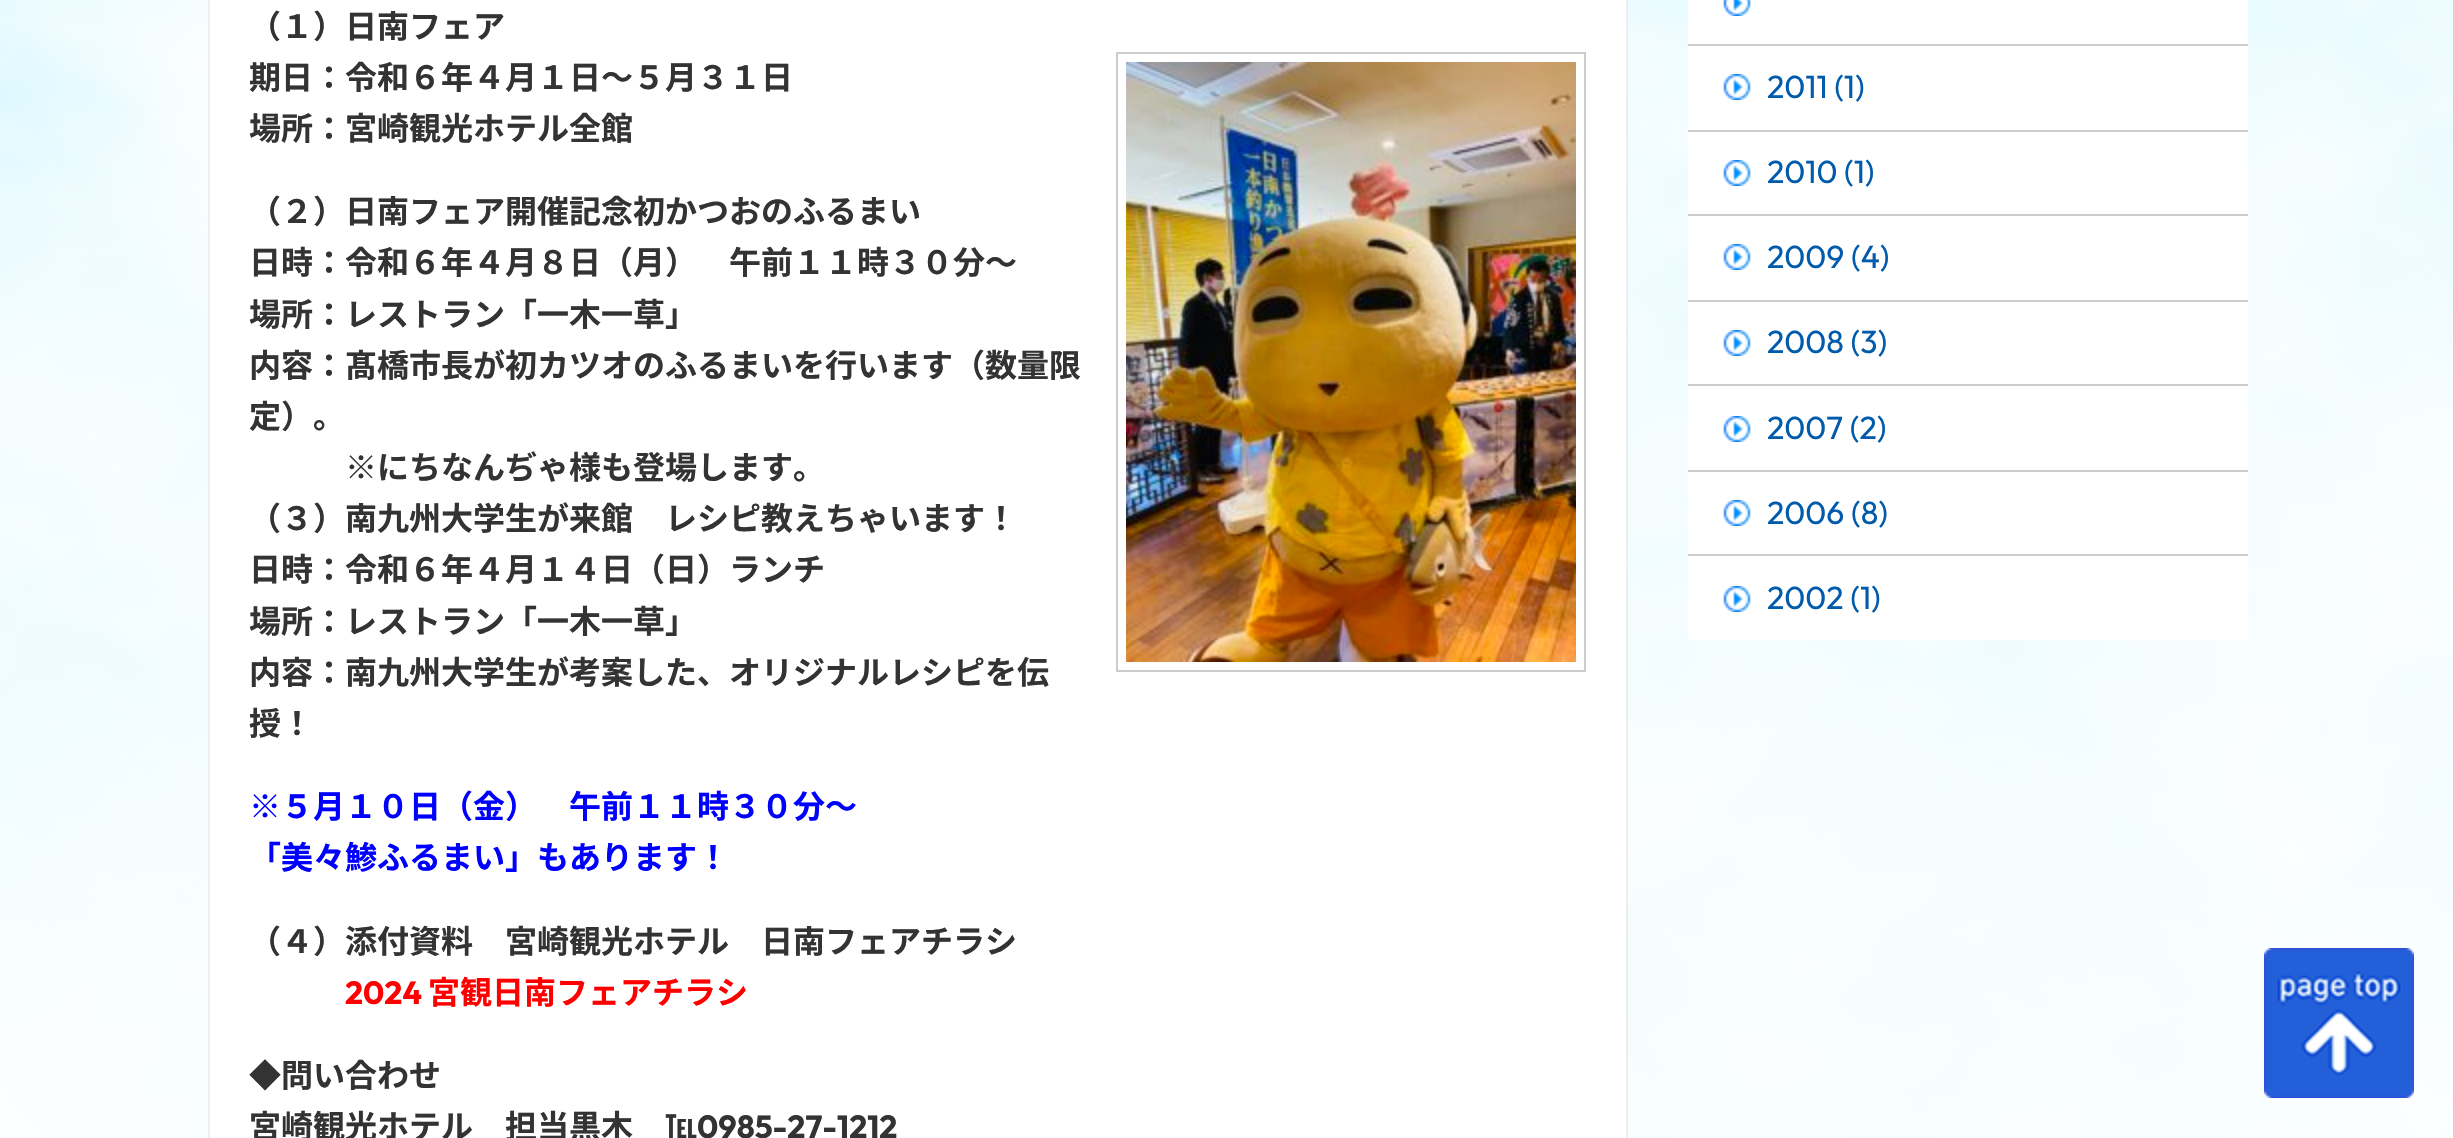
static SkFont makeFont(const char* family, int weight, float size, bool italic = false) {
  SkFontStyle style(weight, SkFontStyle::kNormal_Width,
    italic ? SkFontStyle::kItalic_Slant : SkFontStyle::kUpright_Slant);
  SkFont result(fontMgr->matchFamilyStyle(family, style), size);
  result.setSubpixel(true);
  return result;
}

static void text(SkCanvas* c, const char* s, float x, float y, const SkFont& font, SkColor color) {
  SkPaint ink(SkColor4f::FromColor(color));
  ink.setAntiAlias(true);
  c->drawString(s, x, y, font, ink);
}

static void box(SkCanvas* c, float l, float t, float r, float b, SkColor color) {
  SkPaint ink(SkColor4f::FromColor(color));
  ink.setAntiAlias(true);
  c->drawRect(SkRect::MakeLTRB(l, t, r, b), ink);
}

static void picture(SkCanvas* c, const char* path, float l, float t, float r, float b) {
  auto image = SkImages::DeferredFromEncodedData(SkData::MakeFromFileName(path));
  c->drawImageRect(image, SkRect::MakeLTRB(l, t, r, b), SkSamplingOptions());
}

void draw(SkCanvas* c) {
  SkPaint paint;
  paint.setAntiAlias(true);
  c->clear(0xffffffff);
  picture(c, "img_01.png", 0, 0, 2453, 1138);
  paint.setColor(0xffffffff);
  c->drawRect(SkRect::MakeLTRB(209, -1, 1627, 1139), paint);
  paint.setStyle(SkPaint::kStroke_Style);
  paint.setStrokeWidth(2);
  paint.setColor(0xffeeeeee);
  c->drawRect(SkRect::MakeLTRB(209, -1, 1627, 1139), paint);
  SkFont face1 = makeFont("Noto Sans JP", 700, 32);
  text(c, "（１）日南フェア", 249, 38, face1, 0xff333333);
  text(c, "期日：令和６年４月１日～５月３１日", 249, 89, face1, 0xff333333);
  paint.setColor(0xffcccccc);
  c->drawRect(SkRect::MakeLTRB(1117, 53, 1585, 671), paint);
  picture(c, "img_02.png", 1126, 62, 1576, 662);
  text(c, "場所：宮崎観光ホテル全館", 249, 140, face1, 0xff333333);
  text(c, "（２）日南フェア開催記念初かつおのふるまい", 249, 223, face1, 0xff333333);
  text(c, "日時：令和６年４月８日（月）　午前１１時３０分～", 249, 274, face1, 0xff333333);
  text(c, "場所：レストラン「一木一草」", 249, 326, face1, 0xff333333);
  text(c, "内容：髙橋市長が初カツオのふるまいを行います（数量限", 249, 377, face1, 0xff333333);
  text(c, "定）。", 249, 428, face1, 0xff333333);
  text(c, "※にちなんぢゃ様も登場します。", 345, 479, face1, 0xff333333);
  text(c, "（３）南九州大学生が来館　レシピ教えちゃいます！", 249, 530, face1, 0xff333333);
  text(c, "日時：令和６年４月１４日（日）ランチ", 249, 581, face1, 0xff333333);
  text(c, "場所：レストラン「一木一草」", 249, 633, face1, 0xff333333);
  text(c, "内容：南九州大学生が考案した、オリジナルレシピを伝", 249, 684, face1, 0xff333333);
  text(c, "授！", 249, 735, face1, 0xff333333);
  text(c, "※５月１０日（金）　午前１１時３０分～", 249, 818, face1, 0xff0000ff);
  text(c, "「美々鯵ふるまい」もあります！", 249, 869, face1, 0xff0000ff);
  text(c, "（４）添付資料　宮崎観光ホテル　日南フェアチラシ", 249, 953, face1, 0xff333333);
  SkFont face2 = makeFont("Outfit", 700, 32);
  text(c, "2024", 345, 1004, face2, 0xffff0000);
  text(c, "宮観日南フェアチラシ", 428, 1004, face1, 0xffff0000);
  text(c, "◆問い合わせ", 249, 1087, face1, 0xff333333);
  text(c, "宮崎観光ホテル　担当黒木　℡", 249, 1138, face1, 0xff333333);
  text(c, "0985-27-1212", 697, 1138, face2, 0xff333333);
  box(c, 1688, 0, 2248, 640, 0xffffffff);
  picture(c, "img_03.png", 1723, 0, 1751, 16);
  box(c, 1688, 44, 2248, 46, 0xffcccccc);
  picture(c, "img_04.png", 1723, 74, 1751, 100);
  box(c, 1688, 130, 2248, 132, 0xffcccccc);
  SkFont face3 = makeFont("Outfit", 400, 32);
  text(c, "2011 (1)", 1767, 98, face3, 0xff005bac);
  picture(c, "img_04.png", 1723, 160, 1751, 186);
  box(c, 1688, 214, 2248, 216, 0xffcccccc);
  text(c, "2010 (1)", 1767, 183, face3, 0xff005bac);
  picture(c, "img_04.png", 1723, 244, 1751, 270);
  box(c, 1688, 300, 2248, 302, 0xffcccccc);
  text(c, "2009 (4)", 1767, 268, face3, 0xff005bac);
  picture(c, "img_04.png", 1723, 330, 1751, 356);
  box(c, 1688, 384, 2248, 386, 0xffcccccc);
  text(c, "2008 (3)", 1767, 353, face3, 0xff005bac);
  picture(c, "img_04.png", 1723, 416, 1751, 442);
  box(c, 1688, 470, 2248, 472, 0xffcccccc);
  text(c, "2007 (2)", 1767, 439, face3, 0xff005bac);
  picture(c, "img_04.png", 1723, 500, 1751, 526);
  box(c, 1688, 554, 2248, 556, 0xffcccccc);
  text(c, "2006 (8)", 1767, 524, face3, 0xff005bac);
  picture(c, "img_04.png", 1723, 586, 1751, 612);
  text(c, "2002 (1)", 1767, 609, face3, 0xff005bac);
  picture(c, "img_05.png", 2264, 948, 2414, 1098);
}
